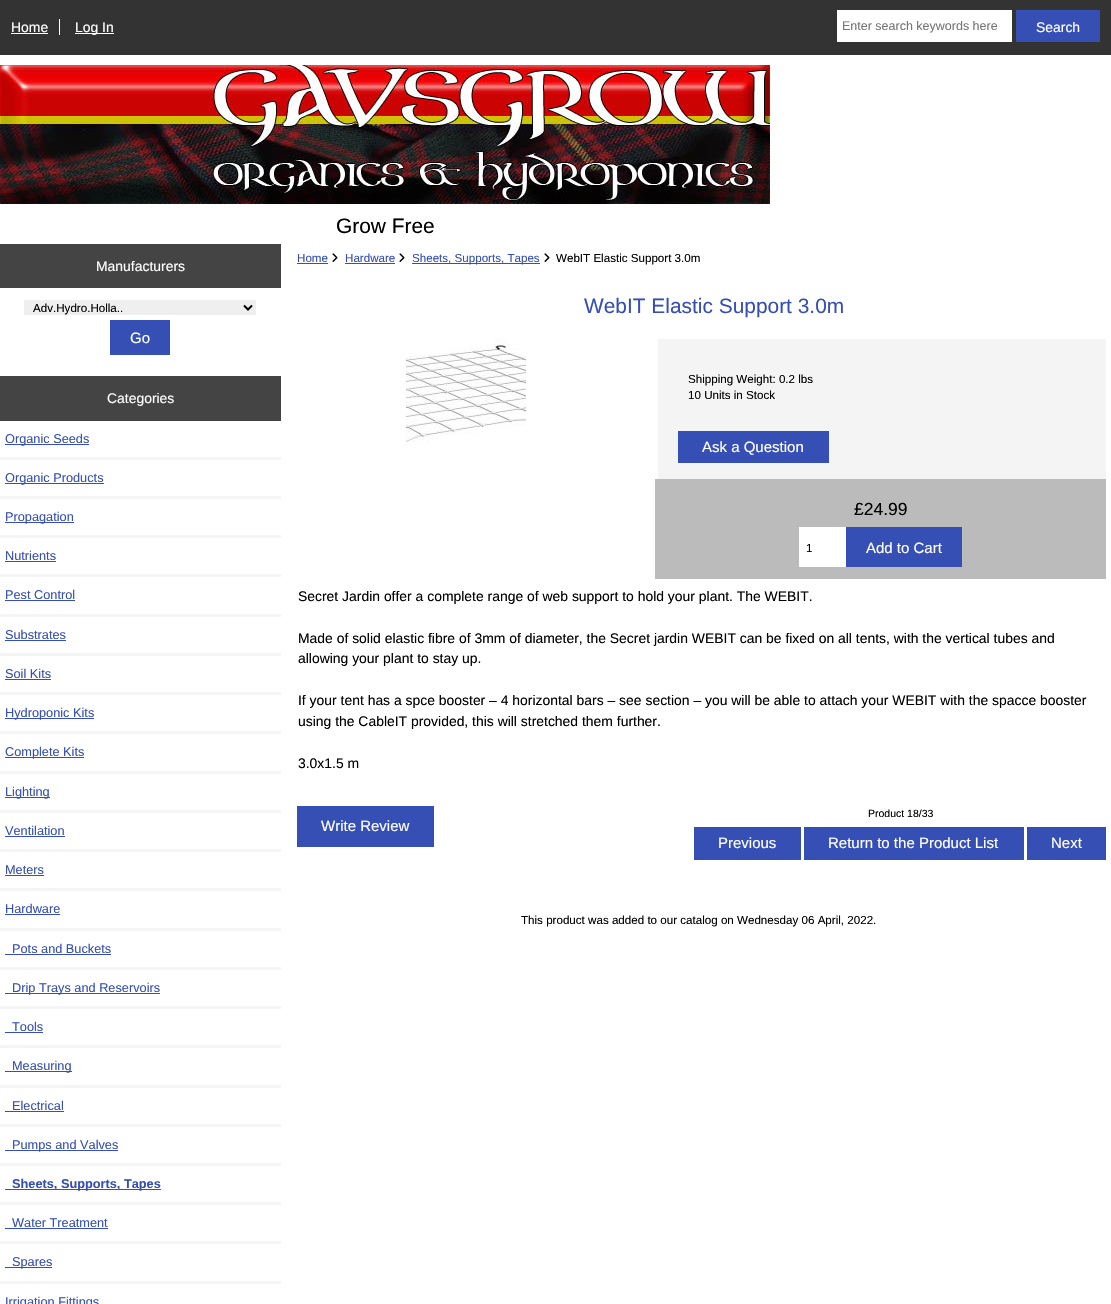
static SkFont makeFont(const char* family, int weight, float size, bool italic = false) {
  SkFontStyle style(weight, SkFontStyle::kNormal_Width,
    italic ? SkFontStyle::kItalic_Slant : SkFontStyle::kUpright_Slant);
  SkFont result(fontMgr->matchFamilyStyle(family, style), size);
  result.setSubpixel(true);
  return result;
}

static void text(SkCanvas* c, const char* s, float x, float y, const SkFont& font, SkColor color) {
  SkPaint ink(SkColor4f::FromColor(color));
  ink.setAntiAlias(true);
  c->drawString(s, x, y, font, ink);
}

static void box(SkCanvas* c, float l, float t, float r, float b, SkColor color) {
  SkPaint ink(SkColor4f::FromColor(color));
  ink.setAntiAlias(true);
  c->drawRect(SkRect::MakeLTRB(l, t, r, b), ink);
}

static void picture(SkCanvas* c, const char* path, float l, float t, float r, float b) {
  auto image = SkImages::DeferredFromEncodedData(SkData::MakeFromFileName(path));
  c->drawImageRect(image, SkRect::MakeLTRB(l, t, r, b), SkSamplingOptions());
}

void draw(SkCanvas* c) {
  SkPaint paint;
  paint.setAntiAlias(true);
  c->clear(0xffffffff);
  box(c, 0, 0, 1111, 55, 0xff333333);
  SkFont face1 = makeFont("Liberation Sans", 400, 13.92f);
  text(c, "Home", 11, 32, face1, 0xffffffff);
  box(c, 59, 19, 60, 35, 0xffffffff);
  box(c, 11, 33, 48, 34, 0xffffffff);
  box(c, 75, 33, 114, 34, 0xffffffff);
  text(c, "Log In", 75, 32, face1, 0xffffffff);
  box(c, 837, 10, 1012, 42, 0xffffffff);
  SkFont face2 = makeFont("Liberation Sans", 400, 12.5f);
  text(c, "Enter search keywords here", 842, 30, face2, 0xff757575);
  box(c, 1016, 10, 1100, 42, 0xff364fb5);
  text(c, "Search", 1036, 32, face1, 0xffffffff);
  picture(c, "img_01.png", 0, 65, 770, 204);
  SkFont face3 = makeFont("Liberation Sans", 400, 20.9f);
  text(c, "Grow Free", 336, 233, face3, 0xff000000);
  box(c, 0, 244, 281, 288, 0xff444444);
  text(c, "Manufacturers", 96, 271, face1, 0xffffffff);
  box(c, 24, 300, 256, 315, 0xffefefef);
  paint.setStyle(SkPaint::kStroke_Style);
  paint.setStrokeWidth(2);
  paint.setColor(0xff000000);
  c->drawPath(SkPathBuilder().moveTo(244, 305.5f).lineTo(248, 309.5f).lineTo(252, 305.5f).detach(), paint);
  SkFont face4 = makeFont("Liberation Sans", 400, 11.6f);
  text(c, "Adv.Hydro.Holla..", 33, 312, face4, 0xff000000);
  box(c, 110, 320, 170, 355, 0xff364fb5);
  SkFont face5 = makeFont("Liberation Sans", 400, 15);
  text(c, "Go", 130, 343, face5, 0xffffffff);
  box(c, 0, 376, 281, 421, 0xff444444);
  text(c, "Categories", 107, 403, face1, 0xffffffff);
  box(c, 0, 457, 281, 460, 0xfff5f5f5);
  box(c, 5, 444, 89, 445, 0xff364fb5);
  SkFont face6 = makeFont("Liberation Sans", 400, 12.75f);
  text(c, "Organic Seeds", 5, 443, face6, 0xff364fb5);
  box(c, 0, 496, 281, 499, 0xfff5f5f5);
  box(c, 5, 483, 104, 484, 0xff364fb5);
  text(c, "Organic Products", 5, 482, face6, 0xff364fb5);
  box(c, 0, 535, 281, 538, 0xfff5f5f5);
  box(c, 5, 522, 74, 523, 0xff364fb5);
  text(c, "Propagation", 5, 521, face6, 0xff364fb5);
  box(c, 0, 574, 281, 577, 0xfff5f5f5);
  text(c, "Nutrients", 5, 560, face6, 0xff364fb5);
  box(c, 5, 561, 56, 562, 0xff364fb5);
  box(c, 0, 614, 281, 617, 0xfff5f5f5);
  text(c, "Pest Control", 5, 599, face6, 0xff364fb5);
  box(c, 5, 600, 75, 601, 0xff364fb5);
  box(c, 0, 653, 281, 656, 0xfff5f5f5);
  text(c, "Substrates", 5, 639, face6, 0xff364fb5);
  box(c, 5, 640, 66, 641, 0xff364fb5);
  box(c, 0, 692, 281, 695, 0xfff5f5f5);
  text(c, "Soil Kits", 5, 678, face6, 0xff364fb5);
  box(c, 5, 679, 51, 680, 0xff364fb5);
  box(c, 0, 731, 281, 734, 0xfff5f5f5);
  box(c, 5, 718, 94, 719, 0xff364fb5);
  text(c, "Hydroponic Kits", 5, 717, face6, 0xff364fb5);
  box(c, 0, 771, 281, 774, 0xfff5f5f5);
  box(c, 5, 757, 84, 758, 0xff364fb5);
  text(c, "Complete Kits", 5, 756, face6, 0xff364fb5);
  box(c, 0, 810, 281, 813, 0xfff5f5f5);
  box(c, 5, 797, 50, 798, 0xff364fb5);
  text(c, "Lighting", 5, 796, face6, 0xff364fb5);
  box(c, 0, 849, 281, 852, 0xfff5f5f5);
  text(c, "Ventilation", 5, 835, face6, 0xff364fb5);
  box(c, 5, 836, 65, 837, 0xff364fb5);
  box(c, 0, 888, 281, 891, 0xfff5f5f5);
  text(c, "Meters", 5, 874, face6, 0xff364fb5);
  box(c, 5, 875, 44, 876, 0xff364fb5);
  box(c, 0, 928, 281, 931, 0xfff5f5f5);
  text(c, "Hardware", 5, 913, face6, 0xff364fb5);
  box(c, 5, 914, 60, 915, 0xff364fb5);
  box(c, 0, 967, 281, 970, 0xfff5f5f5);
  text(c, "Pots and Buckets", 12, 953, face6, 0xff364fb5);
  box(c, 5, 954, 111, 955, 0xff364fb5);
  box(c, 0, 1006, 281, 1009, 0xfff5f5f5);
  box(c, 5, 993, 160, 994, 0xff364fb5);
  text(c, "Drip Trays and Reservoirs", 12, 992, face6, 0xff364fb5);
  box(c, 0, 1045, 281, 1048, 0xfff5f5f5);
  text(c, "Tools", 12, 1031, face6, 0xff364fb5);
  box(c, 5, 1032, 43, 1033, 0xff364fb5);
  box(c, 0, 1085, 281, 1088, 0xfff5f5f5);
  box(c, 5, 1071, 72, 1072, 0xff364fb5);
  text(c, "Measuring", 12, 1070, face6, 0xff364fb5);
  box(c, 0, 1124, 281, 1127, 0xfff5f5f5);
  text(c, "Electrical", 12, 1110, face6, 0xff364fb5);
  box(c, 5, 1111, 64, 1112, 0xff364fb5);
  box(c, 0, 1163, 281, 1166, 0xfff5f5f5);
  box(c, 5, 1150, 118, 1151, 0xff364fb5);
  text(c, "Pumps and Valves", 12, 1149, face6, 0xff364fb5);
  box(c, 0, 1202, 281, 1205, 0xfff5f5f5);
  box(c, 5, 1189, 161, 1190, 0xff364fb5);
  SkFont face7 = makeFont("Liberation Sans", 700, 12.75f);
  text(c, "Sheets, Supports, Tapes", 12, 1188, face7, 0xff364fb5);
  box(c, 0, 1241, 281, 1244, 0xfff5f5f5);
  text(c, "Water Treatment", 12, 1227, face6, 0xff364fb5);
  box(c, 5, 1228, 108, 1229, 0xff364fb5);
  box(c, 0, 1281, 281, 1284, 0xfff5f5f5);
  box(c, 5, 1267, 52, 1268, 0xff364fb5);
  text(c, "Spares", 12, 1266, face6, 0xff364fb5);
  text(c, "Irrigation Fittings", 5, 1306, face6, 0xff364fb5);
  text(c, "Home", 297, 262, face4, 0xff364fb5);
  box(c, 297, 263, 328, 264, 0xff364fb5);
  picture(c, "img_02.png", 332, 253, 338, 262);
  text(c, "Hardware", 345, 262, face4, 0xff364fb5);
  box(c, 345, 263, 395, 264, 0xff364fb5);
  picture(c, "img_02.png", 399, 253, 405, 262);
  box(c, 412, 263, 540, 264, 0xff364fb5);
  text(c, "Sheets, Supports, Tapes", 412, 262, face4, 0xff364fb5);
  picture(c, "img_02.png", 544, 253, 550, 262);
  text(c, "WebIT Elastic Support 3.0m", 556, 262, face4, 0xff000000);
  text(c, "WebIT Elastic Support 3.0m", 584, 313, face3, 0xff364fb5);
  picture(c, "img_03.png", 406, 339, 526, 443);
  box(c, 658, 339, 1106, 479, 0xfff4f4f4);
  text(c, "Shipping Weight: 0.2 lbs", 688, 383, face4, 0xff000000);
  text(c, "10 Units in Stock", 688, 399, face4, 0xff000000);
  box(c, 678, 431, 829, 463, 0xff364fb5);
  text(c, "Ask a Question", 702, 452, face5, 0xffffffff);
  box(c, 655, 479, 1106, 579, 0xffbbbbbb);
  SkFont face8 = makeFont("Liberation Sans", 400, 17.5f);
  text(c, "£24.99", 854, 515, face8, 0xff000000);
  box(c, 799, 527, 846, 567, 0xffffffff);
  text(c, "1", 806, 552, face4, 0xff000000);
  box(c, 846, 527, 962, 567, 0xff364fb5);
  text(c, "Add to Cart", 866, 553, face5, 0xffffffff);
  text(c, "Secret Jardin offer a complete range of web support to hold your plant. The WEBIT.", 298, 601, face1, 0xff000000);
  text(c, "Made of solid elastic fibre of 3mm of diameter, the Secret jardin WEBIT can be fixed on all tents, with the vertical tubes and", 298, 643, face1, 0xff000000);
  text(c, "allowing your plant to stay up.", 298, 663, face1, 0xff000000);
  text(c, "If your tent has a spce booster – 4 horizontal bars – see section – you will be able to attach your WEBIT with the spacce booster", 298, 705, face1, 0xff000000);
  text(c, "using the CableIT provided, this will stretched them further.", 298, 726, face1, 0xff000000);
  text(c, "3.0x1.5 m", 298, 768, face1, 0xff000000);
  box(c, 297, 806, 434, 847, 0xff364fb5);
  text(c, "Write Review", 321, 831, face5, 0xffffffff);
  SkFont face9 = makeFont("Liberation Sans", 400, 10.5f);
  text(c, "Product 18/33", 868, 817, face9, 0xff000000);
  box(c, 694, 827, 801, 860, 0xff364fb5);
  text(c, "Previous", 718, 848, face5, 0xffffffff);
  box(c, 804, 827, 1024, 860, 0xff364fb5);
  text(c, "Return to the Product List", 828, 848, face5, 0xffffffff);
  box(c, 1027, 827, 1106, 860, 0xff364fb5);
  text(c, "Next", 1051, 848, face5, 0xffffffff);
  text(c, "This product was added to our catalog on Wednesday 06 April, 2022.", 521, 924, face4, 0xff000000);
}
